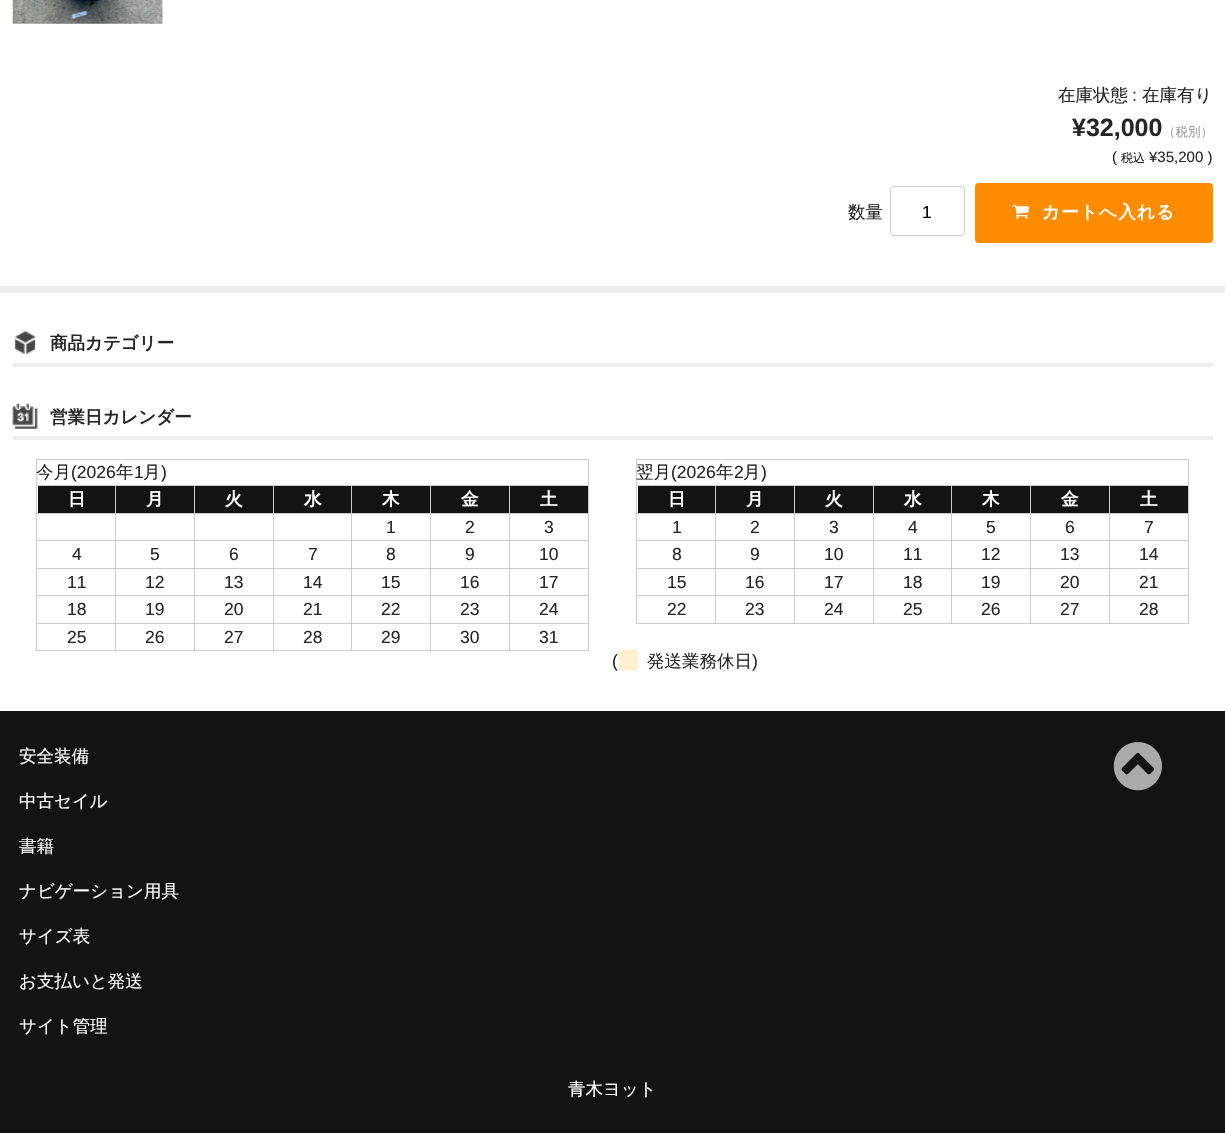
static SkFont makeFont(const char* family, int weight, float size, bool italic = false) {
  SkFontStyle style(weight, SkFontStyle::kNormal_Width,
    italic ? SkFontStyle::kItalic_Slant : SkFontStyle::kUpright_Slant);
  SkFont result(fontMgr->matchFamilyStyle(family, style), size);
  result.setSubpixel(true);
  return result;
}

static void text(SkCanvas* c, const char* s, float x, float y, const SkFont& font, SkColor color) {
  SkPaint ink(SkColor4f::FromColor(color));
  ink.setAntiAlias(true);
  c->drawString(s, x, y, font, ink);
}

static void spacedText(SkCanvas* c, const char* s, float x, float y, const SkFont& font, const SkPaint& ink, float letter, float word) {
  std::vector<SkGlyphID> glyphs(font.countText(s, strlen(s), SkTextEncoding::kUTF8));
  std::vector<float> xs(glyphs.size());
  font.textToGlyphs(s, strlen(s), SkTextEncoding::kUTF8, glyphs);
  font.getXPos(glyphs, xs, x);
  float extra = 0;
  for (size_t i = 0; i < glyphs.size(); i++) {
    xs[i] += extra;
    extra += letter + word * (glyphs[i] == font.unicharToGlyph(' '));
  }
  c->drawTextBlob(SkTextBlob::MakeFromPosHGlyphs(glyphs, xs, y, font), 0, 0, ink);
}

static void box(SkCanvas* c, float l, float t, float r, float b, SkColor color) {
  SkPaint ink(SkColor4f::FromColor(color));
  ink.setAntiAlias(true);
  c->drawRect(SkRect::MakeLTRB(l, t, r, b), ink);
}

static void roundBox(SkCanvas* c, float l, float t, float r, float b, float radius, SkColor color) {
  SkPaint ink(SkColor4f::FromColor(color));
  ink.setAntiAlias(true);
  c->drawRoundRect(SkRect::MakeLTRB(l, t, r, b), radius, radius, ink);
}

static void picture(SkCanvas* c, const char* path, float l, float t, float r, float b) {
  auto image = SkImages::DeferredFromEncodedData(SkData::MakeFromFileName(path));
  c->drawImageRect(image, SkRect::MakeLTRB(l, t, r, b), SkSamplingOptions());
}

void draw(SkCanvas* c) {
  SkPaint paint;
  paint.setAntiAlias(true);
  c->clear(0xffffffff);
  picture(c, "img_01.png", 12, 0, 163, 24);
  SkFont face1 = makeFont("WenQuanYi Zen Hei", 500, 17.5f);
  text(c, "在庫状態", 1058, 101, face1, 0xff262626);
  SkFont face2 = makeFont("Liberation Sans", 400, 17.5f);
  text(c, ":", 1132, 101, face2, 0xff262626);
  text(c, "在庫有り", 1142, 101, face1, 0xff262626);
  SkFont face3 = makeFont("Liberation Sans", 700, 25);
  text(c, "¥32,000", 1072, 136, face3, 0xff262626);
  SkFont face4 = makeFont("WenQuanYi Zen Hei", 500, 12.5f);
  text(c, "（税別）", 1163, 136, face4, 0xff999999);
  SkFont face5 = makeFont("Liberation Sans", 400, 15);
  text(c, "(", 1112, 162, face5, 0xff262626);
  SkFont face6 = makeFont("WenQuanYi Zen Hei", 500, 12);
  text(c, "税込", 1121, 162, face6, 0xff262626);
  text(c, "¥35,200 )", 1149, 162, face5, 0xff262626);
  text(c, "数量", 848, 218, face1, 0xff262626);
  paint.setStyle(SkPaint::kStroke_Style);
  paint.setStrokeWidth(1);
  paint.setColor(0xffcccccc);
  c->drawRoundRect(SkRect::MakeLTRB(890.5f, 186.5f, 964.5f, 235.5f), 3.5f, 3.5f, paint);
  text(c, "1", 922, 218, face2, 0xff000000);
  roundBox(c, 975, 183, 1213, 243, 4, 0xffff8c00);
  picture(c, "img_02.png", 1012, 205, 1029, 219);
  SkFont face7 = makeFont("WenQuanYi Zen Hei", 700, 17.5f);
  paint.setStyle(SkPaint::kFill_Style);
  paint.setColor(0xffffffff);
  spacedText(c, "カートへ入れる", 1042, 218, face7, paint, 1.25f, 0);
  box(c, 0, 286, 1225, 293, 0xffeeeeee);
  box(c, 13, 363, 1213, 367, 0xffeeeeee);
  picture(c, "img_03.png", 14, 331, 36, 354);
  text(c, "商品カテゴリー", 50, 349, face7, 0xff262626);
  box(c, 13, 436, 1213, 440, 0xffeeeeee);
  picture(c, "img_04.png", 12, 403, 38, 429);
  text(c, "営業日カレンダー", 50, 423, face7, 0xff262626);
  box(c, 36, 459, 589, 460, 0xffcccccc);
  box(c, 588, 459, 589, 651, 0xffcccccc);
  box(c, 36, 650, 589, 651, 0xffcccccc);
  box(c, 36, 459, 37, 651, 0xffcccccc);
  text(c, "今月", 36, 478, face1, 0xff262626);
  text(c, "(2026", 71, 478, face2, 0xff262626);
  text(c, "年", 116, 478, face1, 0xff262626);
  text(c, "1", 134, 478, face2, 0xff262626);
  text(c, "月", 143, 478, face1, 0xff262626);
  text(c, ")", 161, 478, face2, 0xff262626);
  box(c, 38, 486, 115, 513, 0xff131313);
  box(c, 509, 485, 589, 486, 0xffcccccc);
  box(c, 509, 513, 589, 514, 0xffcccccc);
  box(c, 509, 540, 589, 541, 0xffcccccc);
  box(c, 509, 568, 589, 569, 0xffcccccc);
  box(c, 509, 595, 589, 596, 0xffcccccc);
  box(c, 509, 623, 589, 624, 0xffcccccc);
  box(c, 509, 623, 510, 651, 0xffcccccc);
  box(c, 430, 623, 510, 624, 0xffcccccc);
  box(c, 509, 595, 510, 624, 0xffcccccc);
  box(c, 430, 595, 510, 596, 0xffcccccc);
  box(c, 509, 568, 510, 596, 0xffcccccc);
  box(c, 430, 568, 510, 569, 0xffcccccc);
  box(c, 509, 540, 510, 569, 0xffcccccc);
  box(c, 430, 540, 510, 541, 0xffcccccc);
  box(c, 509, 513, 510, 541, 0xffcccccc);
  box(c, 430, 513, 510, 514, 0xffcccccc);
  box(c, 509, 485, 510, 514, 0xffcccccc);
  box(c, 430, 485, 510, 486, 0xffcccccc);
  box(c, 430, 623, 431, 651, 0xffcccccc);
  box(c, 351, 623, 431, 624, 0xffcccccc);
  box(c, 430, 595, 431, 624, 0xffcccccc);
  box(c, 351, 595, 431, 596, 0xffcccccc);
  box(c, 430, 568, 431, 596, 0xffcccccc);
  box(c, 351, 568, 431, 569, 0xffcccccc);
  box(c, 430, 540, 431, 569, 0xffcccccc);
  box(c, 351, 540, 431, 541, 0xffcccccc);
  box(c, 430, 513, 431, 541, 0xffcccccc);
  box(c, 351, 513, 431, 514, 0xffcccccc);
  box(c, 430, 485, 431, 514, 0xffcccccc);
  box(c, 351, 485, 431, 486, 0xffcccccc);
  box(c, 351, 623, 352, 651, 0xffcccccc);
  box(c, 273, 623, 353, 624, 0xffcccccc);
  box(c, 351, 595, 352, 624, 0xffcccccc);
  box(c, 273, 595, 353, 596, 0xffcccccc);
  box(c, 351, 568, 352, 596, 0xffcccccc);
  box(c, 273, 568, 353, 569, 0xffcccccc);
  box(c, 351, 540, 352, 569, 0xffcccccc);
  box(c, 273, 540, 353, 541, 0xffcccccc);
  box(c, 351, 513, 352, 541, 0xffcccccc);
  box(c, 273, 513, 353, 514, 0xffcccccc);
  box(c, 351, 485, 352, 514, 0xffcccccc);
  box(c, 273, 485, 353, 486, 0xffcccccc);
  box(c, 273, 623, 274, 651, 0xffcccccc);
  box(c, 194, 623, 274, 624, 0xffcccccc);
  box(c, 273, 595, 274, 624, 0xffcccccc);
  box(c, 194, 595, 274, 596, 0xffcccccc);
  box(c, 273, 568, 274, 596, 0xffcccccc);
  box(c, 194, 568, 274, 569, 0xffcccccc);
  box(c, 273, 540, 274, 569, 0xffcccccc);
  box(c, 194, 540, 274, 541, 0xffcccccc);
  box(c, 273, 513, 274, 541, 0xffcccccc);
  box(c, 194, 513, 274, 514, 0xffcccccc);
  box(c, 273, 485, 274, 514, 0xffcccccc);
  box(c, 194, 485, 274, 486, 0xffcccccc);
  box(c, 194, 623, 195, 651, 0xffcccccc);
  box(c, 115, 623, 195, 624, 0xffcccccc);
  box(c, 194, 595, 195, 624, 0xffcccccc);
  box(c, 115, 595, 195, 596, 0xffcccccc);
  box(c, 194, 568, 195, 596, 0xffcccccc);
  box(c, 115, 568, 195, 569, 0xffcccccc);
  box(c, 194, 540, 195, 569, 0xffcccccc);
  box(c, 115, 540, 195, 541, 0xffcccccc);
  box(c, 194, 513, 195, 541, 0xffcccccc);
  box(c, 115, 513, 195, 514, 0xffcccccc);
  box(c, 194, 485, 195, 514, 0xffcccccc);
  box(c, 115, 485, 195, 486, 0xffcccccc);
  box(c, 115, 623, 116, 651, 0xffcccccc);
  box(c, 36, 623, 116, 624, 0xffcccccc);
  box(c, 115, 595, 116, 624, 0xffcccccc);
  box(c, 36, 595, 116, 596, 0xffcccccc);
  box(c, 115, 568, 116, 596, 0xffcccccc);
  box(c, 36, 568, 116, 569, 0xffcccccc);
  box(c, 115, 540, 116, 569, 0xffcccccc);
  box(c, 36, 540, 116, 541, 0xffcccccc);
  box(c, 115, 513, 116, 541, 0xffcccccc);
  box(c, 36, 513, 116, 514, 0xffcccccc);
  box(c, 115, 485, 116, 514, 0xffcccccc);
  box(c, 36, 485, 116, 486, 0xffcccccc);
  text(c, "日", 68, 505, face7, 0xffffffff);
  box(c, 116, 486, 194, 513, 0xff131313);
  text(c, "月", 146, 505, face7, 0xffffffff);
  box(c, 195, 486, 273, 513, 0xff131313);
  text(c, "火", 225, 505, face7, 0xffffffff);
  box(c, 274, 486, 351, 513, 0xff131313);
  text(c, "水", 304, 505, face7, 0xffffffff);
  box(c, 352, 486, 430, 513, 0xff131313);
  text(c, "木", 382, 505, face7, 0xffffffff);
  box(c, 431, 486, 509, 513, 0xff131313);
  text(c, "金", 461, 505, face7, 0xffffffff);
  box(c, 510, 486, 588, 513, 0xff131313);
  text(c, "土", 540, 505, face7, 0xffffffff);
  text(c, "1", 386, 533, face2, 0xff262626);
  text(c, "2", 465, 533, face2, 0xff262626);
  text(c, "3", 544, 533, face2, 0xff262626);
  text(c, "4", 72, 560, face2, 0xff262626);
  text(c, "5", 150, 560, face2, 0xff262626);
  text(c, "6", 229, 560, face2, 0xff262626);
  text(c, "7", 308, 560, face2, 0xff262626);
  text(c, "8", 386, 560, face2, 0xff262626);
  text(c, "9", 465, 560, face2, 0xff262626);
  text(c, "10", 539, 560, face2, 0xff262626);
  text(c, "11", 67, 588, face2, 0xff262626);
  text(c, "12", 145, 588, face2, 0xff262626);
  text(c, "13", 224, 588, face2, 0xff262626);
  text(c, "14", 303, 588, face2, 0xff262626);
  text(c, "15", 381, 588, face2, 0xff262626);
  text(c, "16", 460, 588, face2, 0xff262626);
  text(c, "17", 539, 588, face2, 0xff262626);
  text(c, "18", 67, 615, face2, 0xff262626);
  text(c, "19", 145, 615, face2, 0xff262626);
  text(c, "20", 224, 615, face2, 0xff262626);
  text(c, "21", 303, 615, face2, 0xff262626);
  text(c, "22", 381, 615, face2, 0xff262626);
  text(c, "23", 460, 615, face2, 0xff262626);
  text(c, "24", 539, 615, face2, 0xff262626);
  text(c, "25", 67, 643, face2, 0xff262626);
  text(c, "26", 145, 643, face2, 0xff262626);
  text(c, "27", 224, 643, face2, 0xff262626);
  text(c, "28", 303, 643, face2, 0xff262626);
  text(c, "29", 381, 643, face2, 0xff262626);
  text(c, "30", 460, 643, face2, 0xff262626);
  text(c, "31", 539, 643, face2, 0xff262626);
  box(c, 636, 459, 1189, 460, 0xffcccccc);
  box(c, 1188, 459, 1189, 624, 0xffcccccc);
  box(c, 636, 623, 1189, 624, 0xffcccccc);
  box(c, 636, 459, 637, 624, 0xffcccccc);
  text(c, "翌月", 636, 478, face1, 0xff262626);
  text(c, "(2026", 671, 478, face2, 0xff262626);
  text(c, "年", 716, 478, face1, 0xff262626);
  text(c, "2", 734, 478, face2, 0xff262626);
  text(c, "月", 743, 478, face1, 0xff262626);
  text(c, ")", 761, 478, face2, 0xff262626);
  box(c, 638, 486, 715, 513, 0xff131313);
  box(c, 1109, 485, 1189, 486, 0xffcccccc);
  box(c, 1109, 513, 1189, 514, 0xffcccccc);
  box(c, 1109, 540, 1189, 541, 0xffcccccc);
  box(c, 1109, 568, 1189, 569, 0xffcccccc);
  box(c, 1109, 595, 1189, 596, 0xffcccccc);
  box(c, 1109, 595, 1110, 624, 0xffcccccc);
  box(c, 1030, 595, 1110, 596, 0xffcccccc);
  box(c, 1109, 568, 1110, 596, 0xffcccccc);
  box(c, 1030, 568, 1110, 569, 0xffcccccc);
  box(c, 1109, 540, 1110, 569, 0xffcccccc);
  box(c, 1030, 540, 1110, 541, 0xffcccccc);
  box(c, 1109, 513, 1110, 541, 0xffcccccc);
  box(c, 1030, 513, 1110, 514, 0xffcccccc);
  box(c, 1109, 485, 1110, 514, 0xffcccccc);
  box(c, 1030, 485, 1110, 486, 0xffcccccc);
  box(c, 1030, 595, 1031, 624, 0xffcccccc);
  box(c, 951, 595, 1031, 596, 0xffcccccc);
  box(c, 1030, 568, 1031, 596, 0xffcccccc);
  box(c, 951, 568, 1031, 569, 0xffcccccc);
  box(c, 1030, 540, 1031, 569, 0xffcccccc);
  box(c, 951, 540, 1031, 541, 0xffcccccc);
  box(c, 1030, 513, 1031, 541, 0xffcccccc);
  box(c, 951, 513, 1031, 514, 0xffcccccc);
  box(c, 1030, 485, 1031, 514, 0xffcccccc);
  box(c, 951, 485, 1031, 486, 0xffcccccc);
  box(c, 951, 595, 952, 624, 0xffcccccc);
  box(c, 873, 595, 953, 596, 0xffcccccc);
  box(c, 951, 568, 952, 596, 0xffcccccc);
  box(c, 873, 568, 953, 569, 0xffcccccc);
  box(c, 951, 540, 952, 569, 0xffcccccc);
  box(c, 873, 540, 953, 541, 0xffcccccc);
  box(c, 951, 513, 952, 541, 0xffcccccc);
  box(c, 873, 513, 953, 514, 0xffcccccc);
  box(c, 951, 485, 952, 514, 0xffcccccc);
  box(c, 873, 485, 953, 486, 0xffcccccc);
  box(c, 873, 595, 874, 624, 0xffcccccc);
  box(c, 794, 595, 874, 596, 0xffcccccc);
  box(c, 873, 568, 874, 596, 0xffcccccc);
  box(c, 794, 568, 874, 569, 0xffcccccc);
  box(c, 873, 540, 874, 569, 0xffcccccc);
  box(c, 794, 540, 874, 541, 0xffcccccc);
  box(c, 873, 513, 874, 541, 0xffcccccc);
  box(c, 794, 513, 874, 514, 0xffcccccc);
  box(c, 873, 485, 874, 514, 0xffcccccc);
  box(c, 794, 485, 874, 486, 0xffcccccc);
  box(c, 794, 595, 795, 624, 0xffcccccc);
  box(c, 715, 595, 795, 596, 0xffcccccc);
  box(c, 794, 568, 795, 596, 0xffcccccc);
  box(c, 715, 568, 795, 569, 0xffcccccc);
  box(c, 794, 540, 795, 569, 0xffcccccc);
  box(c, 715, 540, 795, 541, 0xffcccccc);
  box(c, 794, 513, 795, 541, 0xffcccccc);
  box(c, 715, 513, 795, 514, 0xffcccccc);
  box(c, 794, 485, 795, 514, 0xffcccccc);
  box(c, 715, 485, 795, 486, 0xffcccccc);
  box(c, 715, 595, 716, 624, 0xffcccccc);
  box(c, 636, 595, 716, 596, 0xffcccccc);
  box(c, 715, 568, 716, 596, 0xffcccccc);
  box(c, 636, 568, 716, 569, 0xffcccccc);
  box(c, 715, 540, 716, 569, 0xffcccccc);
  box(c, 636, 540, 716, 541, 0xffcccccc);
  box(c, 715, 513, 716, 541, 0xffcccccc);
  box(c, 636, 513, 716, 514, 0xffcccccc);
  box(c, 715, 485, 716, 514, 0xffcccccc);
  box(c, 636, 485, 716, 486, 0xffcccccc);
  text(c, "日", 668, 505, face7, 0xffffffff);
  box(c, 716, 486, 794, 513, 0xff131313);
  text(c, "月", 746, 505, face7, 0xffffffff);
  box(c, 795, 486, 873, 513, 0xff131313);
  text(c, "火", 825, 505, face7, 0xffffffff);
  box(c, 874, 486, 951, 513, 0xff131313);
  text(c, "水", 904, 505, face7, 0xffffffff);
  box(c, 952, 486, 1030, 513, 0xff131313);
  text(c, "木", 982, 505, face7, 0xffffffff);
  box(c, 1031, 486, 1109, 513, 0xff131313);
  text(c, "金", 1061, 505, face7, 0xffffffff);
  box(c, 1110, 486, 1188, 513, 0xff131313);
  text(c, "土", 1140, 505, face7, 0xffffffff);
  text(c, "1", 672, 533, face2, 0xff262626);
  text(c, "2", 750, 533, face2, 0xff262626);
  text(c, "3", 829, 533, face2, 0xff262626);
  text(c, "4", 908, 533, face2, 0xff262626);
  text(c, "5", 986, 533, face2, 0xff262626);
  text(c, "6", 1065, 533, face2, 0xff262626);
  text(c, "7", 1144, 533, face2, 0xff262626);
  text(c, "8", 672, 560, face2, 0xff262626);
  text(c, "9", 750, 560, face2, 0xff262626);
  text(c, "10", 824, 560, face2, 0xff262626);
  text(c, "11", 903, 560, face2, 0xff262626);
  text(c, "12", 981, 560, face2, 0xff262626);
  text(c, "13", 1060, 560, face2, 0xff262626);
  text(c, "14", 1139, 560, face2, 0xff262626);
  text(c, "15", 667, 588, face2, 0xff262626);
  text(c, "16", 745, 588, face2, 0xff262626);
  text(c, "17", 824, 588, face2, 0xff262626);
  text(c, "18", 903, 588, face2, 0xff262626);
  text(c, "19", 981, 588, face2, 0xff262626);
  text(c, "20", 1060, 588, face2, 0xff262626);
  text(c, "21", 1139, 588, face2, 0xff262626);
  text(c, "22", 667, 615, face2, 0xff262626);
  text(c, "23", 745, 615, face2, 0xff262626);
  text(c, "24", 824, 615, face2, 0xff262626);
  text(c, "25", 903, 615, face2, 0xff262626);
  text(c, "26", 981, 615, face2, 0xff262626);
  text(c, "27", 1060, 615, face2, 0xff262626);
  text(c, "28", 1139, 615, face2, 0xff262626);
  text(c, "(", 612, 667, face2, 0xff262626);
  box(c, 619, 650, 638, 670, 0xfffff0d1);
  text(c, "発送業務休日", 647, 667, face1, 0xff262626);
  text(c, ")", 752, 667, face2, 0xff262626);
  box(c, 0, 711, 1225, 1133, 0xff131313);
  text(c, "安全装備", 19, 762, face1, 0xffffffff);
  text(c, "中古セイル", 19, 807, face1, 0xffffffff);
  text(c, "書籍", 19, 852, face1, 0xffffffff);
  text(c, "ナビゲーション用具", 19, 897, face1, 0xffffffff);
  text(c, "サイズ表", 19, 942, face1, 0xffffffff);
  text(c, "お支払いと発送", 19, 987, face1, 0xffffffff);
  text(c, "サイト管理", 19, 1032, face1, 0xffffffff);
  text(c, "青木ヨット", 568, 1095, face1, 0xffffffff);
  picture(c, "img_05.png", 1113, 742, 1162, 791);
}
